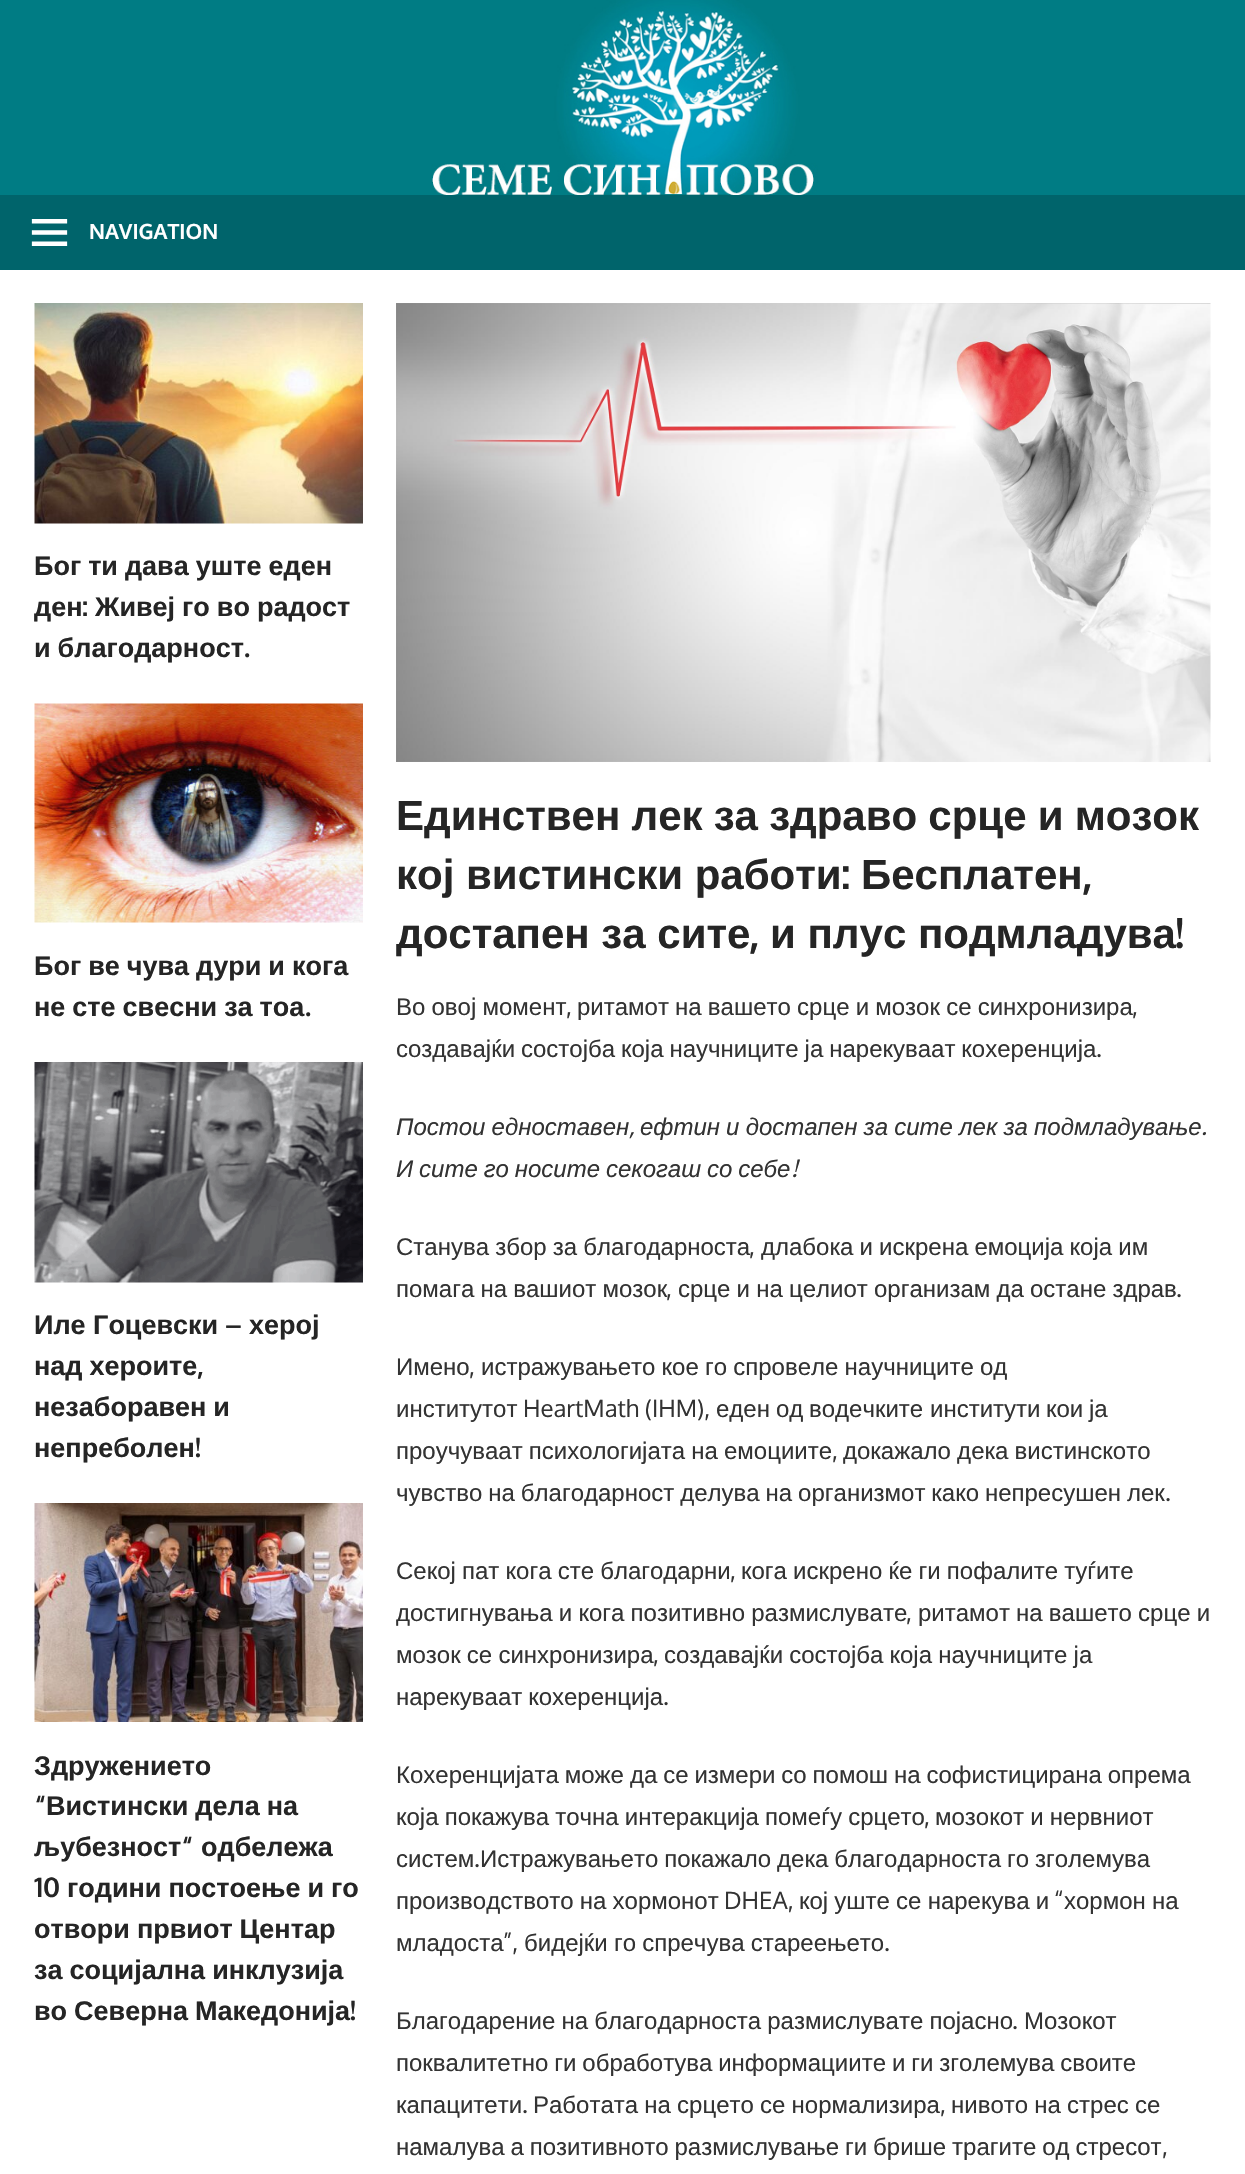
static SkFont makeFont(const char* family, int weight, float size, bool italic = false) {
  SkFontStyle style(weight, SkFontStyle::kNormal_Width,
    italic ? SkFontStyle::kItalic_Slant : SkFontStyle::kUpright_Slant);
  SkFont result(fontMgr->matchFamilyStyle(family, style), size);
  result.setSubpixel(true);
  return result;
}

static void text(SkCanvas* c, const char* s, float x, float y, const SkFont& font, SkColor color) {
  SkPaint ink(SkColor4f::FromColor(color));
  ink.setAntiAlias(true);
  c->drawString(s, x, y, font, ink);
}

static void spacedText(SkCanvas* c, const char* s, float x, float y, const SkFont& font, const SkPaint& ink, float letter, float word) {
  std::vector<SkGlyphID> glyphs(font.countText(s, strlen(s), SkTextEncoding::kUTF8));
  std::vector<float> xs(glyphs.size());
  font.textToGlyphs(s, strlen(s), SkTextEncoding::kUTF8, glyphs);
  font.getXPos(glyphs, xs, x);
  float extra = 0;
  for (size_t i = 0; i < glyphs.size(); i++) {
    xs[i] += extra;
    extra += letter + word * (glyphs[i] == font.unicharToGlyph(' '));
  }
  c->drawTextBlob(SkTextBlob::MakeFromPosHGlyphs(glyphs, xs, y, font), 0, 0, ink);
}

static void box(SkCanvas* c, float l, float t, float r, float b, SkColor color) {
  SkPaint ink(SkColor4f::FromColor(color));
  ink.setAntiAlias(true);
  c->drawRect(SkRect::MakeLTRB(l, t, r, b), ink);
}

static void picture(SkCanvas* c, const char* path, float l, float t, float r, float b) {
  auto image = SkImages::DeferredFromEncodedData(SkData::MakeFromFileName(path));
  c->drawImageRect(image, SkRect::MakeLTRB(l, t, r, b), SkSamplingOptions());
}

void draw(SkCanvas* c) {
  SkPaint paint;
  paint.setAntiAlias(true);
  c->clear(0xffffffff);
  picture(c, "img_01.png", 0, 0, 1245, 195);
  box(c, 0, 195, 1245, 270, 0xff00646b);
  picture(c, "img_02.png", 31, 219, 68, 246);
  SkFont face1 = makeFont("Oxygen", 700, 21);
  text(c, "NAVIGATION", 89, 239, face1, 0xffffffff);
  picture(c, "img_03.png", 34, 303, 363, 524);
  SkFont face2 = makeFont("Liberation Sans", 700, 27);
  paint.setColor(0xff252525);
  spacedText(c, "Бог ти дава уште еден", 34, 575, face2, paint, 0, -0.5f);
  text(c, "ден", 34, 616, face2, 0xff252525);
  SkFont face3 = makeFont("Oxygen", 700, 27);
  text(c, ":", 82, 616, face3, 0xff252525);
  spacedText(c, "Живеј го во радост", 95, 616, face2, paint, 0, -0.5f);
  spacedText(c, "и благодарност", 34, 657, face2, paint, 0, -0.5f);
  text(c, ".", 244, 657, face3, 0xff252525);
  picture(c, "img_04.png", 34, 703, 363, 923);
  spacedText(c, "Бог ве чува дури и кога", 34, 975, face2, paint, 0, -0.5f);
  spacedText(c, "не сте свесни за тоа", 34, 1016, face2, paint, 0, -0.5f);
  text(c, ".", 305, 1016, face3, 0xff252525);
  picture(c, "img_05.png", 34, 1062, 363, 1283);
  text(c, "Иле Гоцевски", 34, 1334, face2, 0xff252525);
  text(c, "–", 225, 1334, face3, 0xff252525);
  text(c, "херој", 249, 1334, face2, 0xff252525);
  spacedText(c, "над хероите", 34, 1375, face2, paint, 0, -0.5f);
  text(c, ",", 197, 1375, face3, 0xff252525);
  spacedText(c, "незаборавен и", 34, 1416, face2, paint, 0, -0.5f);
  text(c, "непреболен", 34, 1457, face2, 0xff252525);
  text(c, "!", 195, 1457, face3, 0xff252525);
  picture(c, "img_06.png", 34, 1503, 363, 1722);
  text(c, "Здружението", 34, 1775, face2, 0xff252525);
  text(c, "“", 34, 1815, face3, 0xff252525);
  spacedText(c, "Вистински дела на", 46, 1815, face2, paint, 0, -0.5f);
  text(c, "љубезност", 34, 1856, face2, 0xff252525);
  text(c, "“", 181, 1856, face3, 0xff252525);
  text(c, "одбележа", 201, 1856, face2, 0xff252525);
  text(c, "10", 34, 1897, face3, 0xff252525);
  spacedText(c, "години постоење и го", 67, 1897, face2, paint, 0, -0.5f);
  spacedText(c, "отвори првиот Центар", 34, 1938, face2, paint, 0, -0.5f);
  spacedText(c, "за социјална инклузија", 34, 1979, face2, paint, 0, -0.5f);
  spacedText(c, "во Северна Македонија", 34, 2020, face2, paint, 0, -0.5f);
  text(c, "!", 350, 2020, face3, 0xff252525);
  picture(c, "img_07.png", 396, 303, 1211, 762);
  SkFont face4 = makeFont("Liberation Sans", 700, 42);
  spacedText(c, "Единствен лек за здраво срце и мозок", 396, 830, face4, paint, 0, -0.5f);
  text(c, "кој вистински работи", 396, 889, face4, 0xff252525);
  SkFont face5 = makeFont("Oxygen", 700, 42);
  text(c, ":", 841, 889, face5, 0xff252525);
  text(c, "Бесплатен", 861, 889, face4, 0xff252525);
  text(c, ",", 1082, 889, face5, 0xff252525);
  text(c, "достапен за сите", 396, 948, face4, 0xff252525);
  text(c, ",", 749, 948, face5, 0xff252525);
  text(c, "и плус подмладува", 770, 948, face4, 0xff252525);
  text(c, "!", 1175, 948, face5, 0xff252525);
  SkFont face6 = makeFont("Liberation Sans", 400, 24);
  paint.setColor(0xff333333);
  spacedText(c, "Во овој момент", 396, 1015, face6, paint, 0, -0.5f);
  SkFont face7 = makeFont("Oxygen", 400, 24);
  text(c, ",", 566, 1015, face7, 0xff333333);
  spacedText(c, "ритамот на вашето срце и мозок се синхронизира", 577, 1015, face6, paint, 0, -0.5f);
  text(c, ",", 1132, 1015, face7, 0xff333333);
  spacedText(c, "создавајќи состојба која научниците ја нарекуваат кохеренција", 396, 1057, face6, paint, 0, -0.75f);
  text(c, ".", 1096, 1057, face7, 0xff333333);
  SkFont face8 = makeFont("Liberation Sans", 400, 24, true);
  spacedText(c, "Постои едноставен", 396, 1135, face8, paint, 0, -0.5f);
  SkFont face9 = makeFont("Oxygen", 400, 24, true);
  text(c, ",", 629, 1135, face9, 0xff333333);
  spacedText(c, "ефтин и достапен за сите лек за подмладување", 640, 1135, face8, paint, 0, -0.5f);
  text(c, ".", 1201, 1135, face9, 0xff333333);
  spacedText(c, "И сите го носите секогаш со себе", 396, 1177, face8, paint, 0, -0.75f);
  text(c, "!", 791, 1177, face9, 0xff333333);
  spacedText(c, "Станува збор за благодарноста", 396, 1255, face6, paint, 0, -0.5f);
  text(c, ",", 749, 1255, face7, 0xff333333);
  spacedText(c, "длабока и искрена емоција која им", 761, 1255, face6, paint, 0, -0.5f);
  spacedText(c, "помага на вашиот мозок", 396, 1297, face6, paint, 0, -0.5f);
  text(c, ",", 666, 1297, face7, 0xff333333);
  spacedText(c, "срце и на целиот организам да остане здрав", 678, 1297, face6, paint, 0, -0.5f);
  text(c, ".", 1176, 1297, face7, 0xff333333);
  text(c, "Имено", 396, 1375, face6, 0xff333333);
  text(c, ",", 469, 1375, face7, 0xff333333);
  spacedText(c, "истражувањето кое го спровеле научниците од", 481, 1375, face6, paint, 0, -0.5f);
  text(c, "институтот", 396, 1417, face6, 0xff333333);
  text(c, "HeartMath (IHM),", 523, 1417, face7, 0xff333333);
  text(c, "еден", 716, 1417, face6, 0xff333333);
  text(c, "од", 776, 1417, face6, 0xff333333);
  text(c, "водечките", 809, 1417, face6, 0xff333333);
  text(c, "институти", 930, 1417, face6, 0xff333333);
  text(c, "кои", 1046, 1417, face6, 0xff333333);
  text(c, "ја", 1089, 1417, face6, 0xff333333);
  spacedText(c, "проучуваат психологијата на емоциите", 396, 1459, face6, paint, 0, -0.5f);
  text(c, ",", 832, 1459, face7, 0xff333333);
  spacedText(c, "докажало дека вистинското", 843, 1459, face6, paint, 0, -0.5f);
  spacedText(c, "чувство на благодарност делува на организмот како непресушен лек", 396, 1501, face6, paint, 0, -0.75f);
  text(c, ".", 1165, 1501, face7, 0xff333333);
  spacedText(c, "Секој пат кога сте благодарни", 396, 1579, face6, paint, 0, -0.5f);
  text(c, ",", 730, 1579, face7, 0xff333333);
  spacedText(c, "кога искрено ќе ги пофалите туѓите", 741, 1579, face6, paint, 0, -0.5f);
  spacedText(c, "достигнувања и кога позитивно размислувате", 396, 1621, face6, paint, 0, -0.5f);
  text(c, ",", 906, 1621, face7, 0xff333333);
  spacedText(c, "ритамот на вашето срце и", 918, 1621, face6, paint, 0, -0.5f);
  spacedText(c, "мозок се синхронизира", 396, 1663, face6, paint, 0, -0.5f);
  text(c, ",", 653, 1663, face7, 0xff333333);
  spacedText(c, "создавајќи состојба која научниците ја", 664, 1663, face6, paint, 0, -0.5f);
  spacedText(c, "нарекуваат кохеренција", 396, 1705, face6, paint, 0, -0.75f);
  text(c, ".", 663, 1705, face7, 0xff333333);
  spacedText(c, "Кохеренцијата може да се измери со помош на софистицирана опрема", 396, 1783, face6, paint, 0, -0.75f);
  spacedText(c, "која покажува точна интеракција помеѓу срцето", 396, 1825, face6, paint, 0, -0.5f);
  text(c, ",", 924, 1825, face7, 0xff333333);
  spacedText(c, "мозокот и нервниот", 935, 1825, face6, paint, 0, -0.5f);
  text(c, "систем", 396, 1867, face6, 0xff333333);
  text(c, ".", 474, 1867, face7, 0xff333333);
  spacedText(c, "Истражувањето покажало дека благодарноста го зголемува", 480, 1867, face6, paint, 0, -0.75f);
  spacedText(c, "производството на хормонот", 396, 1909, face6, paint, 0, -0.5f);
  text(c, "DHEA,", 724, 1909, face7, 0xff333333);
  spacedText(c, "кој уште се нарекува и", 799, 1909, face6, paint, 0, -0.5f);
  text(c, "“", 1054, 1909, face7, 0xff333333);
  spacedText(c, "хормон на", 1064, 1909, face6, paint, 0, -0.5f);
  text(c, "младоста", 396, 1951, face6, 0xff333333);
  text(c, "”,", 503, 1951, face7, 0xff333333);
  spacedText(c, "бидејќи го спречува стареењето", 524, 1951, face6, paint, 0, -0.5f);
  text(c, ".", 884, 1951, face7, 0xff333333);
  spacedText(c, "Благодарение на благодарноста размислувате појасно", 396, 2029, face6, paint, 0, -0.5f);
  text(c, ".", 1012, 2029, face7, 0xff333333);
  text(c, "Мозокот", 1024, 2029, face6, 0xff333333);
  spacedText(c, "поквалитетно ги обработува информациите и ги зголемува своите", 396, 2071, face6, paint, 0, -0.75f);
  text(c, "капацитети", 396, 2113, face6, 0xff333333);
  text(c, ".", 522, 2113, face7, 0xff333333);
  spacedText(c, "Работата на срцето се нормализира", 533, 2113, face6, paint, 0, -0.5f);
  text(c, ",", 940, 2113, face7, 0xff333333);
  spacedText(c, "нивото на стрес се", 951, 2113, face6, paint, 0, -0.5f);
  spacedText(c, "намалува а позитивното размислување ги брише трагите од стресот", 396, 2155, face6, paint, 0, -0.75f);
  text(c, ",", 1162, 2155, face7, 0xff333333);
}
